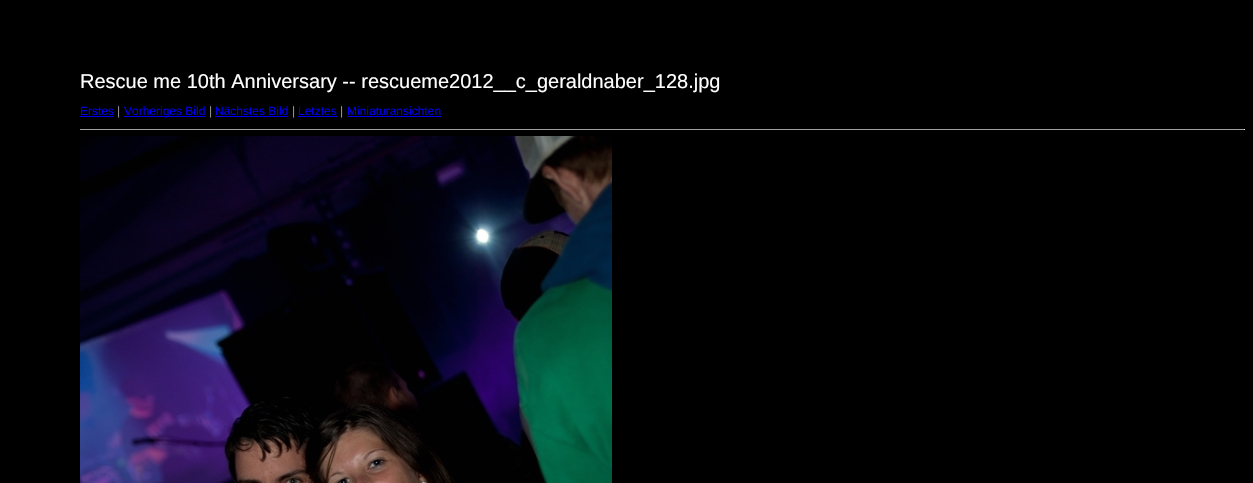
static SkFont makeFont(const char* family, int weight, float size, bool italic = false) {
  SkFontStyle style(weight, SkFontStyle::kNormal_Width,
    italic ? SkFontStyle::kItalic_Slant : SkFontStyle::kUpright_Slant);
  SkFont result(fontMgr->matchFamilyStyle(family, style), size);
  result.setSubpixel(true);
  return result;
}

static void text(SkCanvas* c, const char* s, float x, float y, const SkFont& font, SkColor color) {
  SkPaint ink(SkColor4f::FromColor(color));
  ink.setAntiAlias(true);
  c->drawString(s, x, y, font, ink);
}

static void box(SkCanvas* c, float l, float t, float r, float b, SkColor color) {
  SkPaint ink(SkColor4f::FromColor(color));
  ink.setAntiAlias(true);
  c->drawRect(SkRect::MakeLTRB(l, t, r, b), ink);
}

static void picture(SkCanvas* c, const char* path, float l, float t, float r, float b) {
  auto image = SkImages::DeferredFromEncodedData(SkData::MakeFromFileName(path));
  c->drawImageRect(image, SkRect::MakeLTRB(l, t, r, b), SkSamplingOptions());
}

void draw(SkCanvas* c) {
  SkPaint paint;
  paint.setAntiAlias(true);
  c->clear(0xff000000);
  SkFont face1 = makeFont("Liberation Sans", 400, 20);
  text(c, "Rescue me 10th Anniversary -- rescueme2012__c_geraldnaber_128.jpg", 80, 88, face1, 0xffffffff);
  SkFont face2 = makeFont("Liberation Sans", 400, 12);
  text(c, "Erstes", 80, 115, face2, 0xff0000ee);
  box(c, 80, 116, 114, 117, 0xff0000ee);
  text(c, "|", 117, 115, face2, 0xff999999);
  box(c, 124, 116, 205, 117, 0xff0000ee);
  text(c, "Vorheriges Bild", 124, 115, face2, 0xff0000ee);
  text(c, "|", 209, 115, face2, 0xff999999);
  text(c, "Nächstes Bild", 215, 115, face2, 0xff0000ee);
  box(c, 215, 116, 288, 117, 0xff0000ee);
  text(c, "|", 292, 115, face2, 0xff999999);
  text(c, "Letztes", 298, 115, face2, 0xff0000ee);
  box(c, 298, 116, 337, 117, 0xff0000ee);
  text(c, "|", 340, 115, face2, 0xff999999);
  text(c, "Miniaturansichten", 347, 115, face2, 0xff0000ee);
  box(c, 347, 116, 441, 117, 0xff0000ee);
  box(c, 80, 129, 1245, 130, 0xff9f9f9f);
  box(c, 1244, 129, 1245, 130, 0xffeeeeee);
  picture(c, "img_01.png", 80, 136, 612, 483);
}
